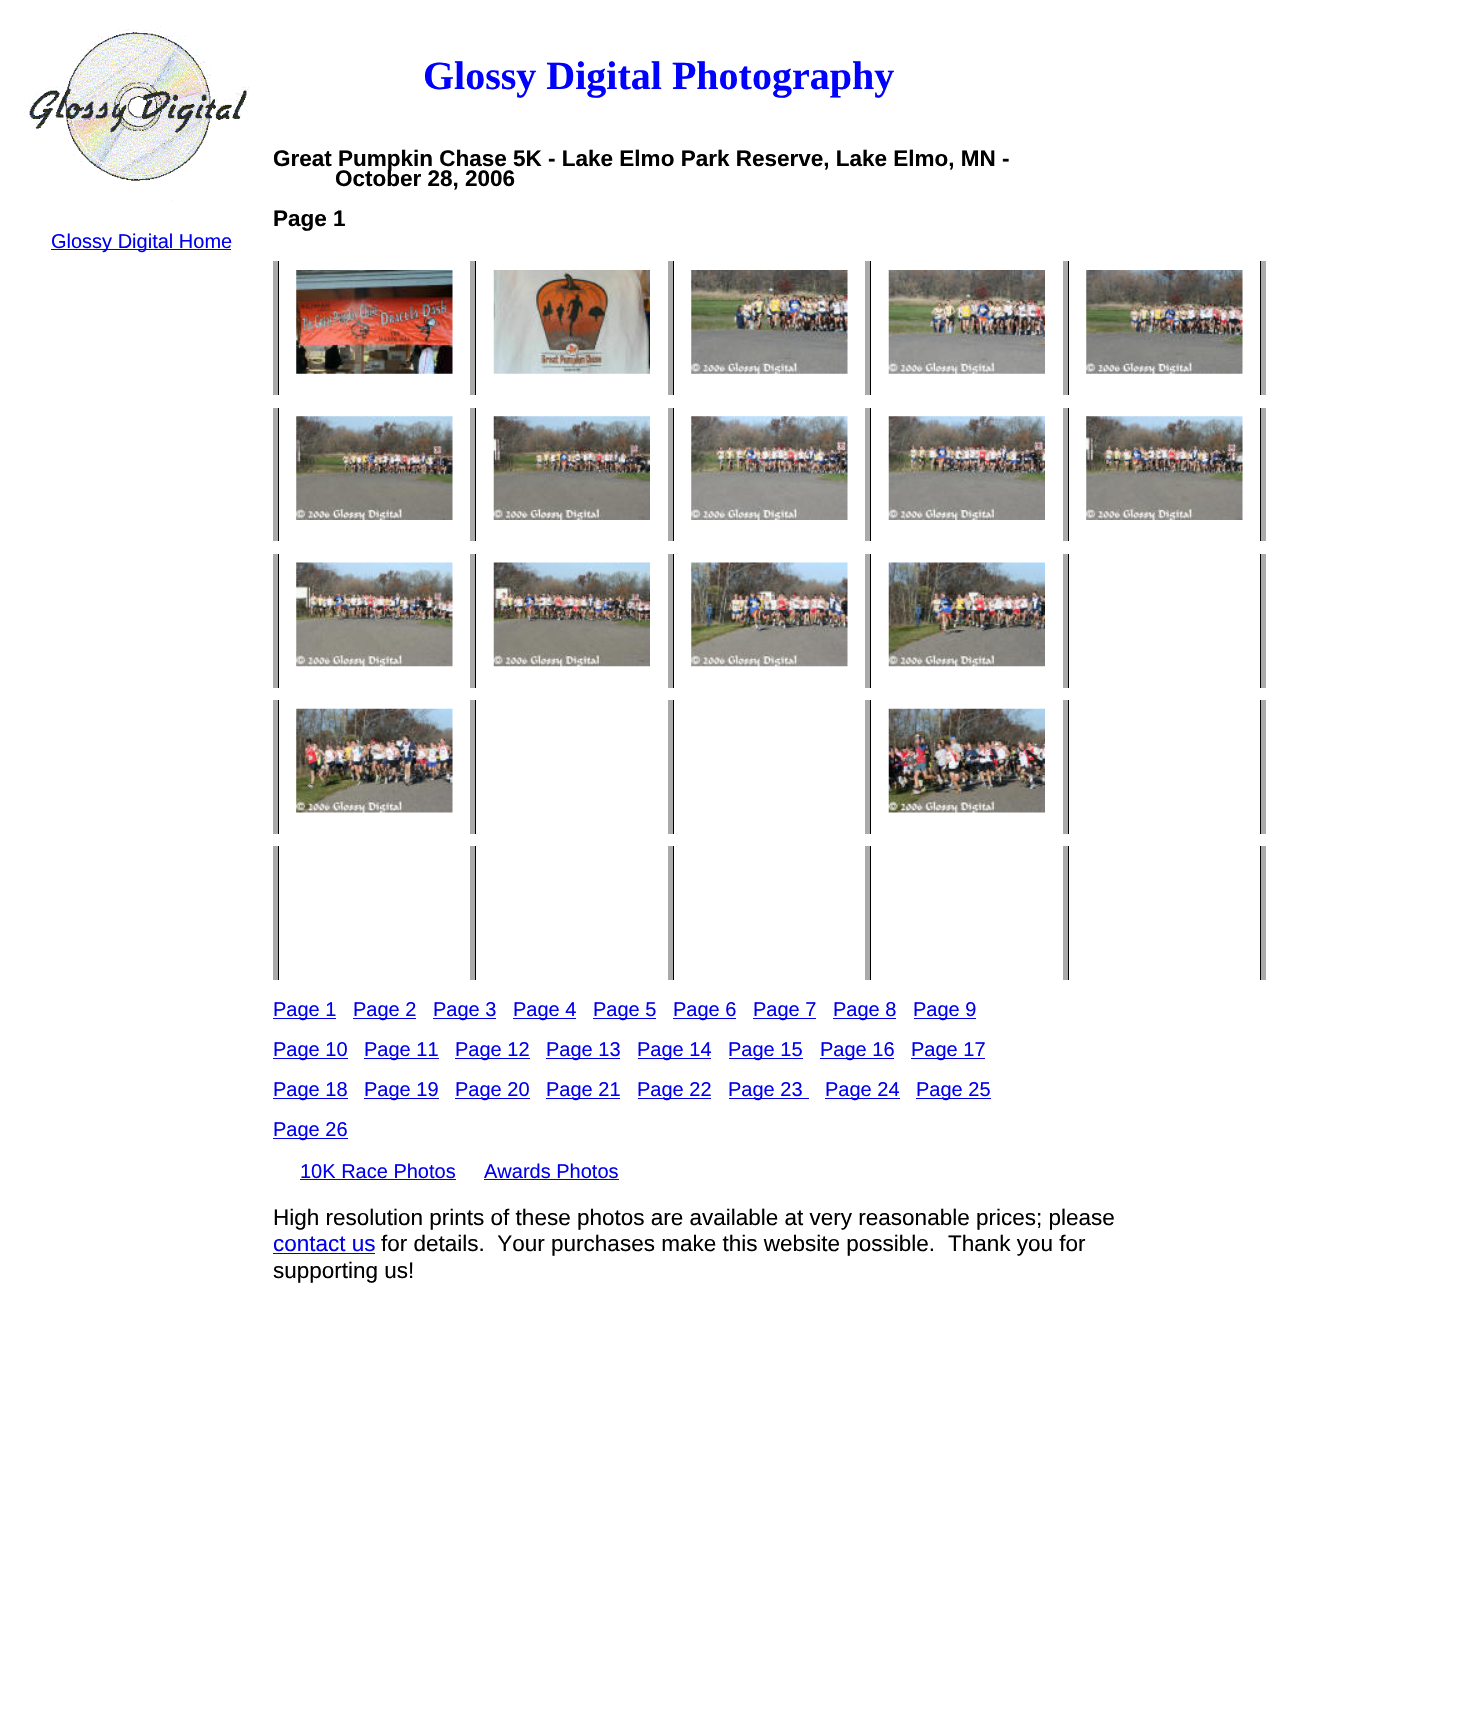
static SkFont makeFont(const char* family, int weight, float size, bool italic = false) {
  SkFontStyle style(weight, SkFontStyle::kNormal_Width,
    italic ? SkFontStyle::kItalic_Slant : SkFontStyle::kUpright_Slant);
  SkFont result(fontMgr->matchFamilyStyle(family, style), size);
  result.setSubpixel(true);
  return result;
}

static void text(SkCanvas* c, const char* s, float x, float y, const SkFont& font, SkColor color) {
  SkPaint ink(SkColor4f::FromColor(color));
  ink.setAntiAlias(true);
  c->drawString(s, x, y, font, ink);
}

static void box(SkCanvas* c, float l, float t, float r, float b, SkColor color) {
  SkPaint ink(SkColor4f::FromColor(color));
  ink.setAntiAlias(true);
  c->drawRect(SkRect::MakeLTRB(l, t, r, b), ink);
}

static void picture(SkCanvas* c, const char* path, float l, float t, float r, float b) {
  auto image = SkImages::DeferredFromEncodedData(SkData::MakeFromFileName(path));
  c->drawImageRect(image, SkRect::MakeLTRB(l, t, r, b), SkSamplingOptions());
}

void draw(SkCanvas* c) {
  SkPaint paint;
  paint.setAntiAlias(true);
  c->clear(0xffffffff);
  picture(c, "img_01.png", 29, 26, 249, 202);
  SkFont face1 = makeFont("Liberation Serif", 700, 40);
  text(c, "Glossy Digital Photography", 423, 89, face1, 0xff0000ff);
  box(c, 51, 249, 231, 250, 0xff0000ee);
  SkFont face2 = makeFont("Liberation Sans", 400, 20);
  text(c, "Glossy Digital Home", 51, 248, face2, 0xff0000ee);
  SkFont face3 = makeFont("Liberation Sans", 700, 22.5f);
  text(c, "Great Pumpkin Chase 5K - Lake Elmo Park Reserve, Lake Elmo, MN -", 273, 166, face3, 0xff000000);
  text(c, "October 28, 2006", 335, 186, face3, 0xff000000);
  text(c, "Page 1", 273, 226, face3, 0xff000000);
  box(c, 273, 261, 278, 395, 0xffaaaaaa);
  box(c, 278, 261, 279, 395, 0xff000000);
  picture(c, "img_02.png", 296, 270, 453, 374);
  box(c, 470, 261, 475, 395, 0xffaaaaaa);
  box(c, 475, 261, 476, 395, 0xff000000);
  picture(c, "img_03.png", 493, 270, 650, 374);
  box(c, 668, 261, 673, 395, 0xffaaaaaa);
  box(c, 673, 261, 674, 395, 0xff000000);
  picture(c, "img_04.png", 691, 270, 848, 374);
  box(c, 865, 261, 870, 395, 0xffaaaaaa);
  box(c, 870, 261, 871, 395, 0xff000000);
  picture(c, "img_05.png", 888, 270, 1045, 374);
  box(c, 1063, 261, 1068, 395, 0xffaaaaaa);
  box(c, 1260, 261, 1261, 395, 0xff000000);
  box(c, 1068, 261, 1069, 395, 0xff000000);
  picture(c, "img_06.png", 1086, 270, 1243, 374);
  box(c, 1261, 261, 1266, 395, 0xffaaaaaa);
  box(c, 273, 408, 278, 541, 0xffaaaaaa);
  box(c, 278, 408, 279, 541, 0xff000000);
  picture(c, "img_07.png", 296, 416, 453, 520);
  box(c, 470, 408, 475, 541, 0xffaaaaaa);
  box(c, 475, 408, 476, 541, 0xff000000);
  picture(c, "img_08.png", 493, 416, 650, 520);
  box(c, 668, 408, 673, 541, 0xffaaaaaa);
  box(c, 673, 408, 674, 541, 0xff000000);
  picture(c, "img_09.png", 691, 416, 848, 520);
  box(c, 865, 408, 870, 541, 0xffaaaaaa);
  box(c, 870, 408, 871, 541, 0xff000000);
  picture(c, "img_10.png", 888, 416, 1045, 520);
  box(c, 1063, 408, 1068, 541, 0xffaaaaaa);
  box(c, 1260, 408, 1261, 541, 0xff000000);
  box(c, 1068, 408, 1069, 541, 0xff000000);
  picture(c, "img_11.png", 1086, 416, 1243, 520);
  box(c, 1261, 408, 1266, 541, 0xffaaaaaa);
  box(c, 273, 554, 278, 688, 0xffaaaaaa);
  box(c, 278, 554, 279, 688, 0xff000000);
  picture(c, "img_12.png", 296, 562, 453, 667);
  box(c, 470, 554, 475, 688, 0xffaaaaaa);
  box(c, 475, 554, 476, 688, 0xff000000);
  picture(c, "img_13.png", 493, 562, 650, 667);
  box(c, 668, 554, 673, 688, 0xffaaaaaa);
  box(c, 673, 554, 674, 688, 0xff000000);
  picture(c, "img_14.png", 691, 562, 848, 667);
  box(c, 865, 554, 870, 688, 0xffaaaaaa);
  box(c, 870, 554, 871, 688, 0xff000000);
  picture(c, "img_15.png", 888, 562, 1045, 667);
  box(c, 1063, 554, 1068, 688, 0xffaaaaaa);
  box(c, 1260, 554, 1261, 688, 0xff000000);
  box(c, 1068, 554, 1069, 688, 0xff000000);
  box(c, 1261, 554, 1266, 688, 0xffaaaaaa);
  box(c, 273, 700, 278, 834, 0xffaaaaaa);
  box(c, 278, 700, 279, 834, 0xff000000);
  picture(c, "img_16.png", 296, 708, 453, 813);
  box(c, 470, 700, 475, 834, 0xffaaaaaa);
  box(c, 475, 700, 476, 834, 0xff000000);
  box(c, 668, 700, 673, 834, 0xffaaaaaa);
  box(c, 673, 700, 674, 834, 0xff000000);
  box(c, 865, 700, 870, 834, 0xffaaaaaa);
  box(c, 870, 700, 871, 834, 0xff000000);
  picture(c, "img_17.png", 888, 708, 1045, 813);
  box(c, 1063, 700, 1068, 834, 0xffaaaaaa);
  box(c, 1260, 700, 1261, 834, 0xff000000);
  box(c, 1068, 700, 1069, 834, 0xff000000);
  box(c, 1261, 700, 1266, 834, 0xffaaaaaa);
  box(c, 273, 846, 278, 980, 0xffaaaaaa);
  box(c, 278, 846, 279, 980, 0xff000000);
  box(c, 470, 846, 475, 980, 0xffaaaaaa);
  box(c, 475, 846, 476, 980, 0xff000000);
  box(c, 668, 846, 673, 980, 0xffaaaaaa);
  box(c, 673, 846, 674, 980, 0xff000000);
  box(c, 865, 846, 870, 980, 0xffaaaaaa);
  box(c, 870, 846, 871, 980, 0xff000000);
  box(c, 1063, 846, 1068, 980, 0xffaaaaaa);
  box(c, 1260, 846, 1261, 980, 0xff000000);
  box(c, 1068, 846, 1069, 980, 0xff000000);
  box(c, 1261, 846, 1266, 980, 0xffaaaaaa);
  box(c, 273, 1018, 336, 1019, 0xff0000ee);
  text(c, "Page 1", 273, 1016, face2, 0xff0000ee);
  box(c, 353, 1018, 416, 1019, 0xff0000ee);
  text(c, "Page 2", 353, 1016, face2, 0xff0000ee);
  box(c, 433, 1018, 496, 1019, 0xff0000ee);
  text(c, "Page 3", 433, 1016, face2, 0xff0000ee);
  box(c, 513, 1018, 576, 1019, 0xff0000ee);
  text(c, "Page 4", 513, 1016, face2, 0xff0000ee);
  box(c, 593, 1018, 656, 1019, 0xff0000ee);
  text(c, "Page 5", 593, 1016, face2, 0xff0000ee);
  box(c, 673, 1018, 736, 1019, 0xff0000ee);
  text(c, "Page 6", 673, 1016, face2, 0xff0000ee);
  box(c, 753, 1018, 816, 1019, 0xff0000ee);
  text(c, "Page 7", 753, 1016, face2, 0xff0000ee);
  box(c, 833, 1018, 896, 1019, 0xff0000ee);
  text(c, "Page 8", 833, 1016, face2, 0xff0000ee);
  box(c, 914, 1018, 976, 1019, 0xff0000ee);
  text(c, "Page 9", 913, 1016, face2, 0xff0000ee);
  box(c, 273, 1058, 348, 1059, 0xff0000ee);
  text(c, "Page 10", 273, 1056, face2, 0xff0000ee);
  box(c, 364, 1058, 439, 1059, 0xff0000ee);
  text(c, "Page 11", 364, 1056, face2, 0xff0000ee);
  box(c, 455, 1058, 530, 1059, 0xff0000ee);
  text(c, "Page 12", 455, 1056, face2, 0xff0000ee);
  box(c, 546, 1058, 620, 1059, 0xff0000ee);
  text(c, "Page 13", 546, 1056, face2, 0xff0000ee);
  box(c, 638, 1058, 711, 1059, 0xff0000ee);
  text(c, "Page 14", 637, 1056, face2, 0xff0000ee);
  box(c, 729, 1058, 803, 1059, 0xff0000ee);
  text(c, "Page 15", 728, 1056, face2, 0xff0000ee);
  box(c, 820, 1058, 894, 1059, 0xff0000ee);
  text(c, "Page 16", 820, 1056, face2, 0xff0000ee);
  box(c, 911, 1058, 985, 1059, 0xff0000ee);
  text(c, "Page 17", 911, 1056, face2, 0xff0000ee);
  box(c, 273, 1098, 348, 1099, 0xff0000ee);
  text(c, "Page 18", 273, 1096, face2, 0xff0000ee);
  box(c, 364, 1098, 439, 1099, 0xff0000ee);
  text(c, "Page 19", 364, 1096, face2, 0xff0000ee);
  box(c, 455, 1098, 530, 1099, 0xff0000ee);
  text(c, "Page 20", 455, 1096, face2, 0xff0000ee);
  box(c, 546, 1098, 620, 1099, 0xff0000ee);
  text(c, "Page 21", 546, 1096, face2, 0xff0000ee);
  box(c, 638, 1098, 711, 1099, 0xff0000ee);
  text(c, "Page 22", 637, 1096, face2, 0xff0000ee);
  box(c, 729, 1098, 809, 1099, 0xff0000ee);
  text(c, "Page 23", 728, 1096, face2, 0xff0000ee);
  box(c, 825, 1098, 900, 1099, 0xff0000ee);
  text(c, "Page 24", 825, 1096, face2, 0xff0000ee);
  box(c, 916, 1098, 991, 1099, 0xff0000ee);
  text(c, "Page 25", 916, 1096, face2, 0xff0000ee);
  box(c, 273, 1138, 348, 1139, 0xff0000ee);
  text(c, "Page 26", 273, 1136, face2, 0xff0000ee);
  text(c, "10K Race Photos", 300, 1178, face2, 0xff0000ee);
  box(c, 300, 1179, 456, 1180, 0xff0000ee);
  text(c, "Awards Photos", 484, 1178, face2, 0xff0000ee);
  box(c, 484, 1179, 619, 1180, 0xff0000ee);
  SkFont face4 = makeFont("Liberation Sans", 400, 22.5f);
  text(c, "High resolution prints of these photos are available at very reasonable prices; please", 273, 1225, face4, 0xff000000);
  text(c, "contact us", 273, 1251, face4, 0xff0000ee);
  box(c, 273, 1253, 375, 1254, 0xff0000ee);
  text(c, "for details.  Your purchases make this website possible.", 381, 1251, face4, 0xff000000);
  text(c, "Thank you for", 948, 1251, face4, 0xff000000);
  text(c, "supporting us!", 273, 1278, face4, 0xff000000);
}
